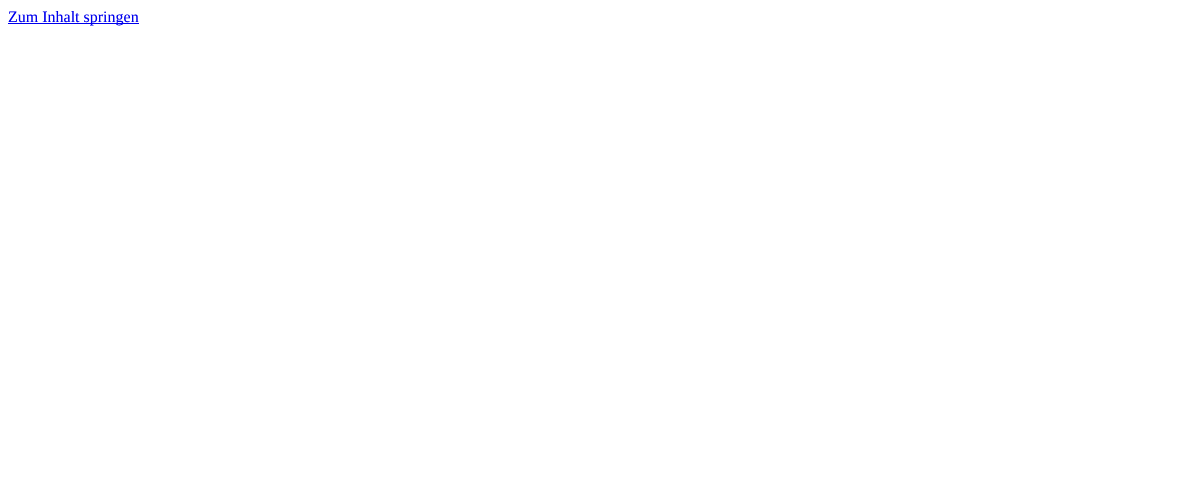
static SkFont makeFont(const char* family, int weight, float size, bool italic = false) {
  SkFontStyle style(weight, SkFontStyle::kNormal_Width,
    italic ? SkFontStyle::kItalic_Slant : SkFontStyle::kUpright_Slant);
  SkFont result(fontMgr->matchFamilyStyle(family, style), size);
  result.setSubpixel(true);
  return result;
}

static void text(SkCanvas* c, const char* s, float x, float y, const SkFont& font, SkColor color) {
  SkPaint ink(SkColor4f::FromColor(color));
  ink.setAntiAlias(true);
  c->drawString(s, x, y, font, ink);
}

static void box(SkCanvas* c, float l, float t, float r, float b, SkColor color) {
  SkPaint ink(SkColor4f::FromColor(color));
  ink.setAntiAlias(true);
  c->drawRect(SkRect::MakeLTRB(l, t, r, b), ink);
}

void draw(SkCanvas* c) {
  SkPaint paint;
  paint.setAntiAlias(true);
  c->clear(0xffffffff);
  box(c, 8, 23, 139, 24, 0xff0000ee);
  SkFont face1 = makeFont("Liberation Serif", 400, 16);
  text(c, "Zum Inhalt springen", 8, 22, face1, 0xff0000ee);
}
